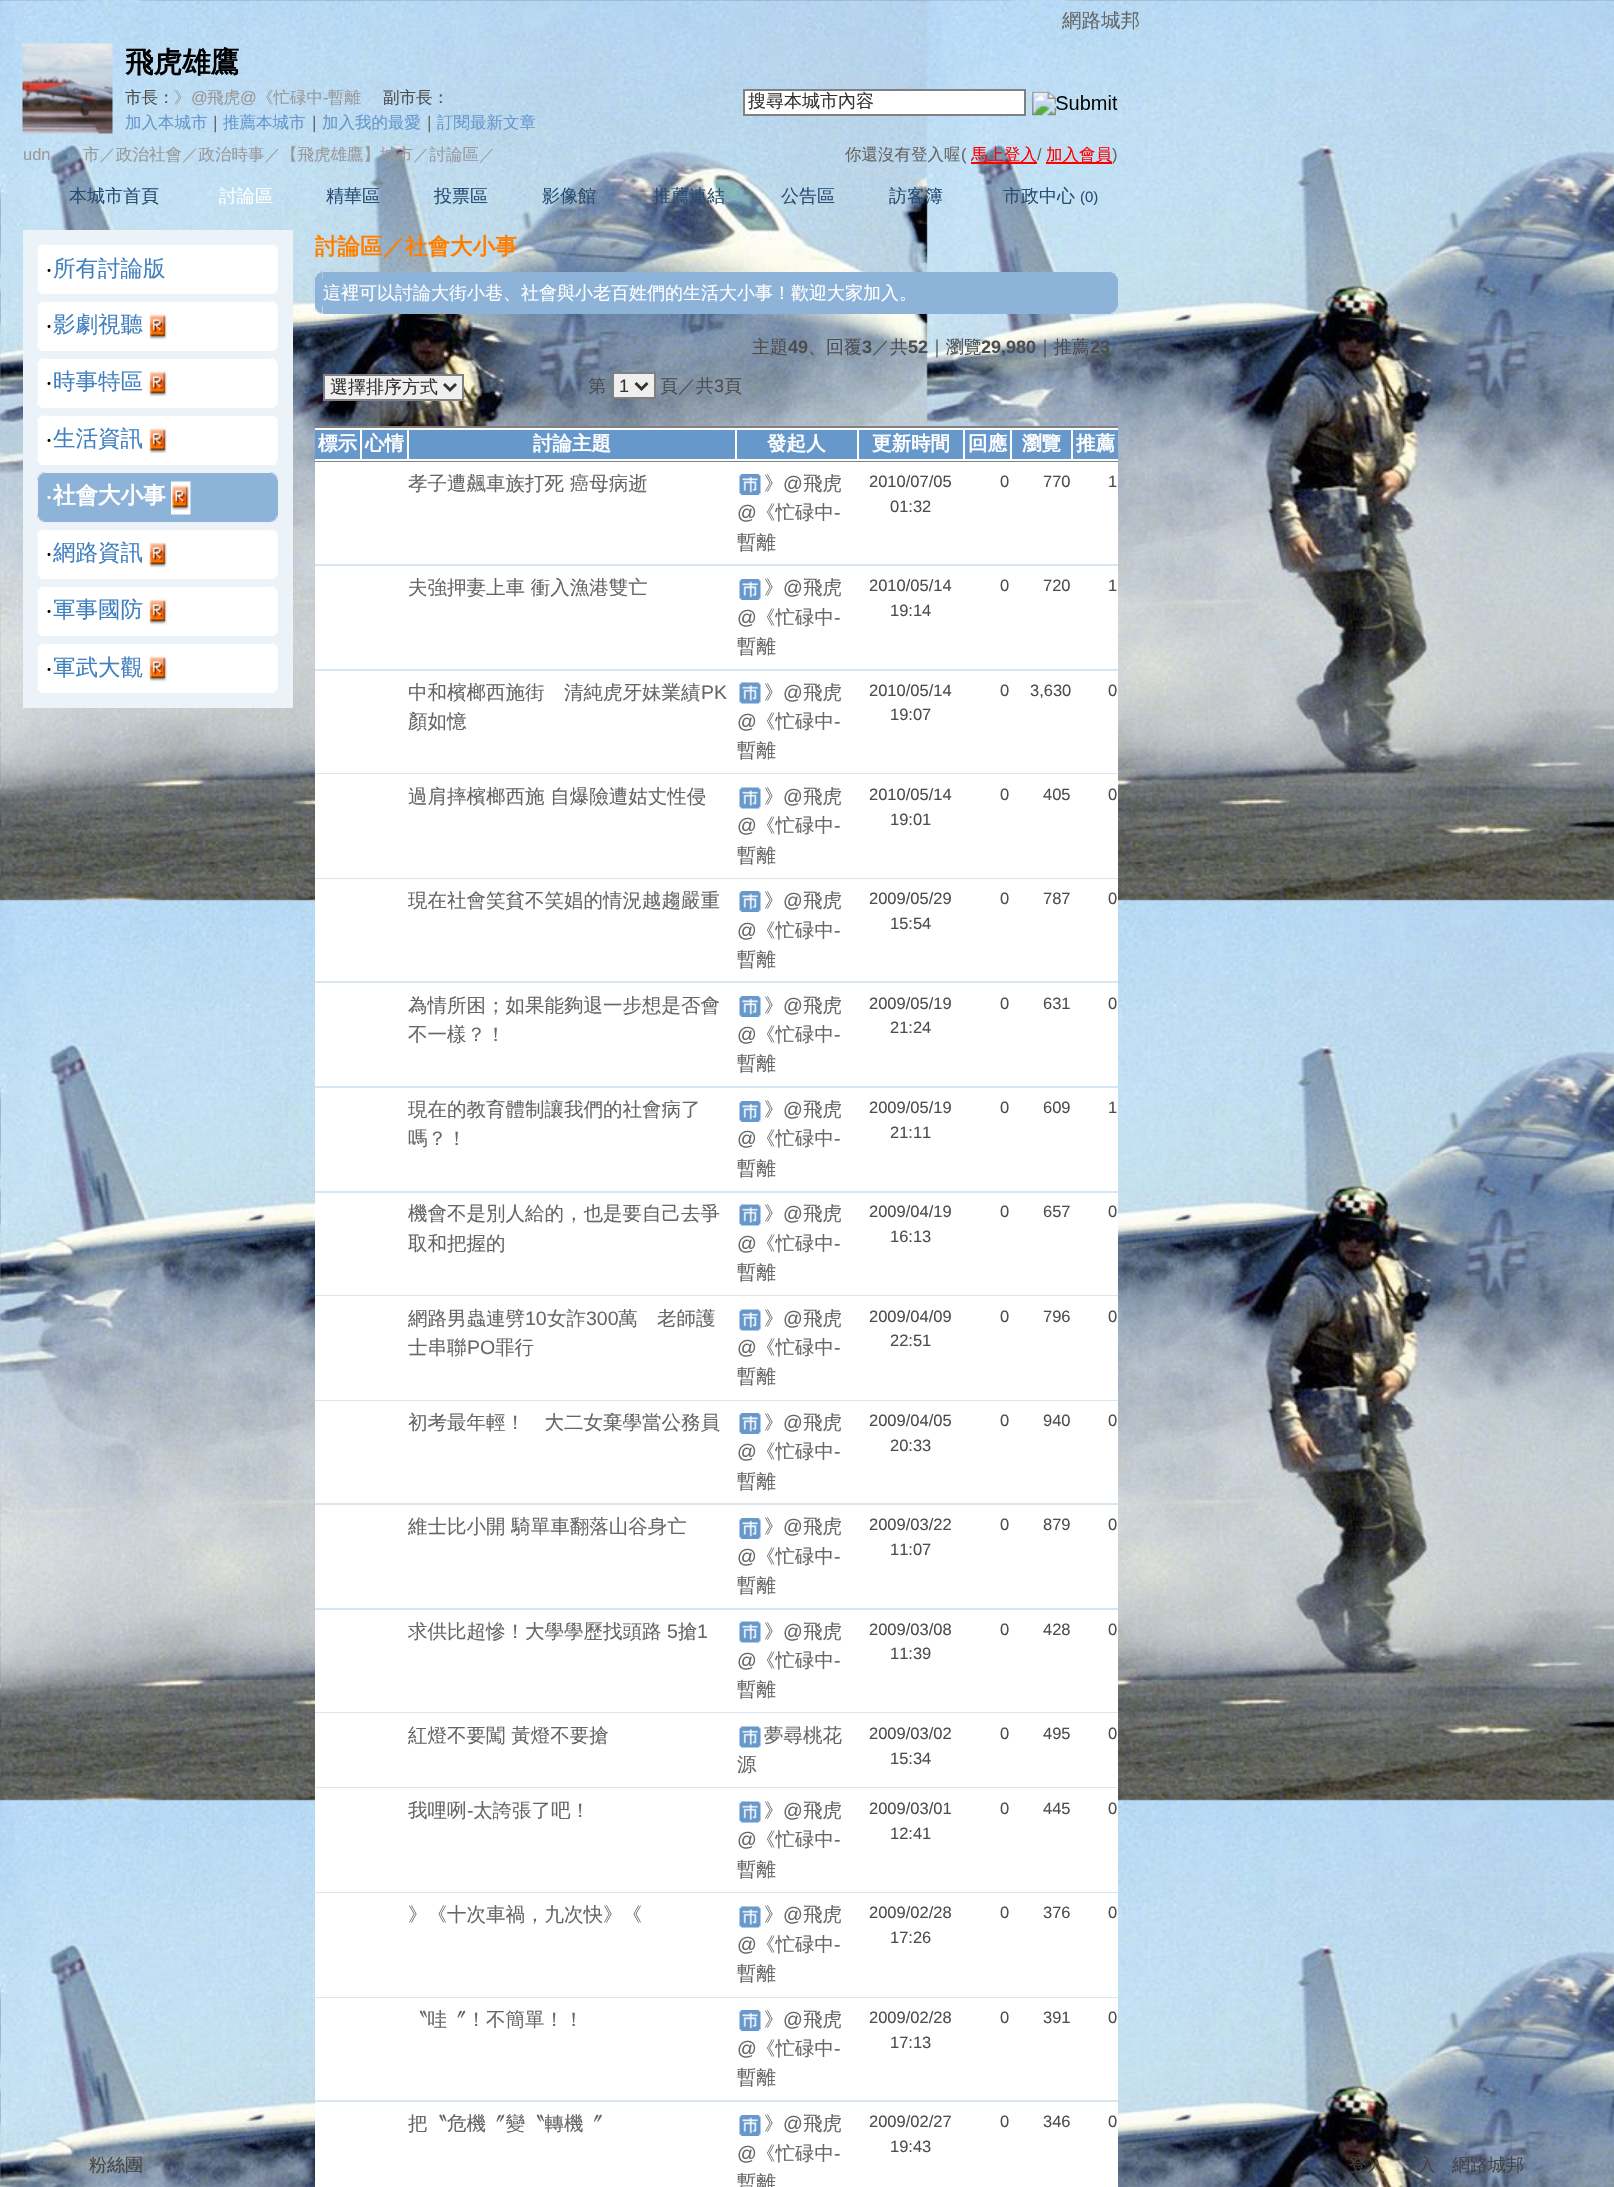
static SkFont makeFont(const char* family, int weight, float size, bool italic = false) {
  SkFontStyle style(weight, SkFontStyle::kNormal_Width,
    italic ? SkFontStyle::kItalic_Slant : SkFontStyle::kUpright_Slant);
  SkFont result(fontMgr->matchFamilyStyle(family, style), size);
  result.setSubpixel(true);
  return result;
}

static void text(SkCanvas* c, const char* s, float x, float y, const SkFont& font, SkColor color) {
  SkPaint ink(SkColor4f::FromColor(color));
  ink.setAntiAlias(true);
  c->drawString(s, x, y, font, ink);
}

static void box(SkCanvas* c, float l, float t, float r, float b, SkColor color) {
  SkPaint ink(SkColor4f::FromColor(color));
  ink.setAntiAlias(true);
  c->drawRect(SkRect::MakeLTRB(l, t, r, b), ink);
}

static void picture(SkCanvas* c, const char* path, float l, float t, float r, float b) {
  auto image = SkImages::DeferredFromEncodedData(SkData::MakeFromFileName(path));
  c->drawImageRect(image, SkRect::MakeLTRB(l, t, r, b), SkSamplingOptions());
}

void draw(SkCanvas* c) {
  SkPaint paint;
  paint.setAntiAlias(true);
  c->clear(0xffffffff);
  picture(c, "img_01.png", 0, 0, 1614, 2187);
  SkFont face1 = makeFont("WenQuanYi Zen Hei", 500, 19.5f);
  text(c, "網路城邦", 1062, 27, face1, 0xff666666);
  picture(c, "img_02.png", 22, 43, 113, 134);
  SkFont face2 = makeFont("WenQuanYi Zen Hei", 700, 28.5f);
  text(c, "飛虎雄鷹", 125, 72, face2, 0xff000000);
  SkFont face3 = makeFont("WenQuanYi Zen Hei", 500, 16.5f);
  text(c, "市長：", 125, 103, face3, 0xff4d4d4d);
  text(c, "》", 174, 103, face3, 0xff999999);
  SkFont face4 = makeFont("Liberation Sans", 400, 16.5f);
  text(c, "@", 191, 103, face4, 0xff999999);
  text(c, "飛虎", 207, 103, face3, 0xff999999);
  text(c, "@", 240, 103, face4, 0xff999999);
  text(c, "《忙碌中", 257, 103, face3, 0xff999999);
  text(c, "-", 323, 103, face4, 0xff999999);
  text(c, "暫離", 328, 103, face3, 0xff999999);
  text(c, "副市長：", 383, 103, face3, 0xff4d4d4d);
  text(c, "加入本城市", 125, 128, face3, 0xff6698cc);
  text(c, "｜", 207, 128, face3, 0xff4d4d4d);
  text(c, "推薦本城市", 223, 128, face3, 0xff6698cc);
  text(c, "｜", 306, 128, face3, 0xff4d4d4d);
  text(c, "加入我的最愛", 322, 128, face3, 0xff6698cc);
  text(c, "｜", 421, 128, face3, 0xff4d4d4d);
  text(c, "訂閱最新文章", 437, 128, face3, 0xff6698cc);
  paint.setColor(0xffffffff);
  c->drawRect(SkRect::MakeLTRB(744, 90, 1025, 115), paint);
  paint.setStyle(SkPaint::kStroke_Style);
  paint.setStrokeWidth(2);
  paint.setColor(0xff808080);
  c->drawRect(SkRect::MakeLTRB(744, 90, 1025, 115), paint);
  SkFont face5 = makeFont("WenQuanYi Zen Hei", 500, 18);
  text(c, "搜尋本城市內容", 748, 107, face5, 0xff333333);
  picture(c, "img_03.png", 1032, 91, 1118, 116);
  text(c, "udn", 23, 160, face4, 0xff999999);
  text(c, "市／政治社會／政治時事／【飛虎雄鷹】城市／討論區／", 83, 160, face3, 0xff999999);
  text(c, "你還沒有登入喔", 845, 160, face3, 0xff666666);
  text(c, "(", 961, 160, face4, 0xff666666);
  box(c, 971, 162, 1037, 164, 0xffff0000);
  text(c, "馬上登入", 971, 160, face3, 0xffff0000);
  text(c, "/", 1037, 160, face4, 0xff666666);
  box(c, 1046, 162, 1112, 164, 0xffff0000);
  text(c, "加入會員", 1046, 160, face3, 0xffff0000);
  text(c, ")", 1112, 160, face4, 0xff666666);
  text(c, "本城市首頁", 69, 202, face5, 0xff274d74);
  text(c, "討論區", 219, 202, face5, 0xffffffff);
  text(c, "精華區", 326, 202, face5, 0xff274d74);
  text(c, "投票區", 434, 202, face5, 0xff274d74);
  text(c, "影像館", 542, 202, face5, 0xff274d74);
  text(c, "推薦連結", 653, 202, face5, 0xff274d74);
  text(c, "公告區", 781, 202, face5, 0xff274d74);
  text(c, "訪客簿", 889, 202, face5, 0xff274d74);
  text(c, "市政中心", 1003, 202, face5, 0xff274d74);
  SkFont face6 = makeFont("Liberation Sans", 400, 15);
  text(c, "(0)", 1080, 202, face6, 0xff274d74);
  box(c, 23, 230, 293, 708, 0xffebf2f8);
  picture(c, "img_04.png", 37, 244, 45, 252);
  box(c, 45, 245, 270, 252, 0xffffffff);
  picture(c, "img_05.png", 270, 244, 278, 252);
  box(c, 38, 252, 278, 287, 0xffffffff);
  SkFont face7 = makeFont("Noto Sans", 400, 22.5f);
  text(c, "‧", 46, 276, face7, 0xff000000);
  SkFont face8 = makeFont("WenQuanYi Zen Hei", 500, 22.5f);
  text(c, "所有討論版", 53, 276, face8, 0xff4180c0);
  picture(c, "img_06.png", 37, 286, 45, 294);
  box(c, 45, 287, 270, 294, 0xffffffff);
  picture(c, "img_07.png", 270, 287, 278, 294);
  picture(c, "img_04.png", 37, 301, 45, 309);
  box(c, 45, 302, 270, 309, 0xffffffff);
  picture(c, "img_05.png", 270, 301, 278, 309);
  box(c, 38, 309, 278, 344, 0xffffffff);
  text(c, "‧", 46, 332, face7, 0xff000000);
  text(c, "影劇視聽", 53, 332, face8, 0xff4180c0);
  picture(c, "img_08.png", 149, 312, 168, 340);
  picture(c, "img_06.png", 37, 343, 45, 351);
  box(c, 45, 344, 270, 351, 0xffffffff);
  picture(c, "img_07.png", 270, 344, 278, 351);
  picture(c, "img_04.png", 37, 358, 45, 366);
  box(c, 45, 359, 270, 366, 0xffffffff);
  picture(c, "img_05.png", 270, 358, 278, 366);
  box(c, 38, 366, 278, 401, 0xffffffff);
  text(c, "‧", 46, 389, face7, 0xff000000);
  text(c, "時事特區", 53, 389, face8, 0xff4180c0);
  picture(c, "img_08.png", 149, 369, 168, 397);
  picture(c, "img_06.png", 37, 400, 45, 408);
  box(c, 45, 401, 270, 408, 0xffffffff);
  picture(c, "img_07.png", 270, 401, 278, 408);
  picture(c, "img_04.png", 37, 415, 45, 423);
  box(c, 45, 416, 270, 423, 0xffffffff);
  picture(c, "img_05.png", 270, 415, 278, 423);
  box(c, 38, 423, 278, 458, 0xffffffff);
  text(c, "‧", 46, 446, face7, 0xff000000);
  text(c, "生活資訊", 53, 446, face8, 0xff4180c0);
  picture(c, "img_08.png", 149, 426, 168, 454);
  picture(c, "img_06.png", 37, 457, 45, 465);
  box(c, 45, 458, 270, 465, 0xffffffff);
  picture(c, "img_07.png", 270, 458, 278, 465);
  picture(c, "img_09.png", 37, 472, 45, 480);
  box(c, 45, 473, 270, 480, 0xff8db3d9);
  picture(c, "img_10.png", 270, 472, 278, 480);
  box(c, 38, 480, 278, 515, 0xff8db3d9);
  text(c, "‧", 46, 503, face7, 0xffffffff);
  SkFont face9 = makeFont("WenQuanYi Zen Hei", 700, 22.5f);
  text(c, "社會大小事", 53, 503, face9, 0xffffffff);
  picture(c, "img_11.png", 171, 481, 191, 515);
  picture(c, "img_12.png", 37, 514, 45, 522);
  box(c, 45, 515, 270, 522, 0xff8db3d9);
  picture(c, "img_13.png", 270, 515, 278, 522);
  picture(c, "img_04.png", 37, 529, 45, 537);
  box(c, 45, 530, 270, 537, 0xffffffff);
  picture(c, "img_05.png", 270, 529, 278, 537);
  box(c, 38, 537, 278, 572, 0xffffffff);
  text(c, "‧", 46, 560, face7, 0xff000000);
  text(c, "網路資訊", 53, 560, face8, 0xff4180c0);
  picture(c, "img_08.png", 149, 540, 168, 568);
  picture(c, "img_06.png", 37, 571, 45, 579);
  box(c, 45, 572, 270, 579, 0xffffffff);
  picture(c, "img_07.png", 270, 572, 278, 579);
  picture(c, "img_04.png", 37, 586, 45, 594);
  box(c, 45, 587, 270, 594, 0xffffffff);
  picture(c, "img_05.png", 270, 586, 278, 594);
  box(c, 38, 594, 278, 629, 0xffffffff);
  text(c, "‧", 46, 617, face7, 0xff000000);
  text(c, "軍事國防", 53, 617, face8, 0xff4180c0);
  picture(c, "img_08.png", 149, 597, 168, 625);
  picture(c, "img_06.png", 37, 628, 45, 636);
  box(c, 45, 629, 270, 636, 0xffffffff);
  picture(c, "img_07.png", 270, 629, 278, 636);
  picture(c, "img_04.png", 37, 643, 45, 651);
  box(c, 45, 644, 270, 651, 0xffffffff);
  picture(c, "img_05.png", 270, 643, 278, 651);
  box(c, 38, 651, 278, 686, 0xffffffff);
  text(c, "‧", 46, 675, face7, 0xff000000);
  text(c, "軍武大觀", 53, 675, face8, 0xff4180c0);
  picture(c, "img_08.png", 149, 654, 168, 682);
  picture(c, "img_06.png", 37, 685, 45, 693);
  box(c, 45, 686, 270, 693, 0xffffffff);
  picture(c, "img_07.png", 270, 686, 278, 693);
  text(c, "討論區／社會大小事", 315, 254, face9, 0xffff7e00);
  picture(c, "img_14.png", 315, 271, 323, 279);
  box(c, 323, 272, 1110, 279, 0xff8db3d9);
  picture(c, "img_15.png", 1110, 271, 1118, 279);
  box(c, 315, 279, 1118, 306, 0xff8db3d9);
  text(c, "這裡可以討論大街小巷、社會與小老百姓們的生活大小事！歡迎大家加入。", 323, 299, face5, 0xffffffff);
  picture(c, "img_16.png", 315, 306, 323, 314);
  box(c, 323, 306, 1110, 314, 0xff8db3d9);
  picture(c, "img_17.png", 1110, 306, 1118, 314);
  text(c, "主題", 752, 353, face5, 0xff4d4d4d);
  SkFont face10 = makeFont("Liberation Sans", 700, 18);
  text(c, "49", 788, 353, face10, 0xff4d4d4d);
  text(c, "、回覆", 808, 353, face5, 0xff4d4d4d);
  text(c, "3", 862, 353, face10, 0xff4d4d4d);
  text(c, "／共", 872, 353, face5, 0xff4d4d4d);
  text(c, "52", 908, 353, face10, 0xff4d4d4d);
  text(c, "｜瀏覽", 928, 353, face5, 0xff4d4d4d);
  text(c, "29,980", 981, 353, face10, 0xff4d4d4d);
  text(c, "｜推薦", 1036, 353, face5, 0xff4d4d4d);
  text(c, "23", 1090, 353, face10, 0xff4d4d4d);
  paint.setStyle(SkPaint::kFill_Style);
  paint.setColor(0xffefefef);
  c->drawRect(SkRect::MakeLTRB(324, 375, 463, 400), paint);
  paint.setStyle(SkPaint::kStroke_Style);
  paint.setColor(0xff808080);
  c->drawRect(SkRect::MakeLTRB(324, 375, 463, 400), paint);
  paint.setStrokeWidth(3);
  paint.setColor(0xff333333);
  c->drawPath(SkPathBuilder().moveTo(444, 384).lineTo(450, 390).lineTo(456, 384).detach(), paint);
  text(c, "選擇排序方式", 330, 393, face5, 0xff333333);
  text(c, "第", 588, 392, face5, 0xff4d4d4d);
  paint.setStyle(SkPaint::kFill_Style);
  paint.setColor(0xffefefef);
  c->drawRect(SkRect::MakeLTRB(613, 373, 655, 398), paint);
  paint.setStyle(SkPaint::kStroke_Style);
  paint.setStrokeWidth(2);
  paint.setColor(0xff808080);
  c->drawRect(SkRect::MakeLTRB(613, 373, 655, 398), paint);
  paint.setStrokeWidth(3);
  paint.setColor(0xff333333);
  c->drawPath(SkPathBuilder().moveTo(635.5f, 383).lineTo(641.5f, 389).lineTo(647.5f, 383).detach(), paint);
  SkFont face11 = makeFont("Liberation Sans", 400, 18);
  text(c, "1", 619, 392, face11, 0xff333333);
  text(c, "頁／共", 660, 392, face5, 0xff4d4d4d);
  text(c, "3", 714, 392, face11, 0xff4d4d4d);
  text(c, "頁", 724, 392, face5, 0xff4d4d4d);
  box(c, 315, 430, 1118, 459, 0xff6698cc);
  box(c, 315, 426, 1118, 428, 0xff808080);
  box(c, 315, 428, 1118, 430, 0xffffffff);
  SkFont face12 = makeFont("WenQuanYi Zen Hei", 700, 19.5f);
  text(c, "標示", 318, 450, face12, 0xffffffff);
  box(c, 360, 429, 362, 459, 0xffffffff);
  text(c, "心情", 365, 450, face12, 0xffffffff);
  box(c, 407, 429, 409, 459, 0xffffffff);
  text(c, "討論主題", 533, 450, face12, 0xffffffff);
  box(c, 735, 429, 737, 459, 0xffffffff);
  text(c, "發起人", 767, 450, face12, 0xffffffff);
  box(c, 857, 429, 859, 459, 0xffffffff);
  text(c, "更新時間", 872, 450, face12, 0xffffffff);
  box(c, 963, 429, 965, 459, 0xffffffff);
  text(c, "回應", 968, 450, face12, 0xffffffff);
  box(c, 1010, 429, 1012, 459, 0xffffffff);
  text(c, "瀏覽", 1022, 450, face12, 0xffffffff);
  box(c, 1071, 429, 1073, 459, 0xffffffff);
  text(c, "推薦", 1076, 450, face12, 0xffffffff);
  box(c, 315, 459, 1118, 461, 0xffffffff);
  box(c, 315, 461, 1118, 462, 0xff808080);
  box(c, 315, 462, 1118, 564, 0xffffffff);
  text(c, "孝子遭飆車族打死 癌母病逝", 408, 490, face1, 0xff666666);
  picture(c, "img_18.png", 739, 474, 761, 495);
  text(c, "》", 764, 490, face1, 0xff666666);
  SkFont face13 = makeFont("Liberation Sans", 400, 19.5f);
  text(c, "@", 783, 490, face13, 0xff666666);
  text(c, "飛虎", 803, 490, face1, 0xff666666);
  text(c, "@", 737, 519, face13, 0xff666666);
  text(c, "《忙碌中", 756, 519, face1, 0xff666666);
  text(c, "-", 834, 519, face13, 0xff666666);
  text(c, "暫離", 737, 549, face1, 0xff666666);
  text(c, "2010/07/05", 869, 487, face4, 0xff4d4d4d);
  text(c, "01:32", 890, 512, face4, 0xff4d4d4d);
  text(c, "0", 1000, 487, face4, 0xff4d4d4d);
  text(c, "770", 1043, 487, face4, 0xff4d4d4d);
  text(c, "1", 1108, 487, face4, 0xff4d4d4d);
  box(c, 315, 564, 1118, 566, 0xffd8e5f2);
  box(c, 315, 566, 1118, 669, 0xffffffff);
  text(c, "夫強押妻上車 衝入漁港雙亡", 408, 594, face1, 0xff666666);
  picture(c, "img_18.png", 739, 579, 761, 600);
  text(c, "》", 764, 594, face1, 0xff666666);
  text(c, "@", 783, 594, face13, 0xff666666);
  text(c, "飛虎", 803, 594, face1, 0xff666666);
  text(c, "@", 737, 624, face13, 0xff666666);
  text(c, "《忙碌中", 756, 624, face1, 0xff666666);
  text(c, "-", 834, 624, face13, 0xff666666);
  text(c, "暫離", 737, 653, face1, 0xff666666);
  text(c, "2010/05/14", 869, 591, face4, 0xff4d4d4d);
  text(c, "19:14", 890, 616, face4, 0xff4d4d4d);
  text(c, "0", 1000, 591, face4, 0xff4d4d4d);
  text(c, "720", 1043, 591, face4, 0xff4d4d4d);
  text(c, "1", 1108, 591, face4, 0xff4d4d4d);
  box(c, 315, 669, 1118, 671, 0xffd8e5f2);
  box(c, 315, 671, 1118, 773, 0xffffffff);
  text(c, "中和檳榔西施街　清純虎牙妹業績", 408, 699, face1, 0xff666666);
  text(c, "PK", 701, 699, face13, 0xff666666);
  text(c, "顏如憶", 408, 728, face1, 0xff666666);
  picture(c, "img_19.png", 739, 682, 761, 704);
  text(c, "》", 764, 699, face1, 0xff666666);
  text(c, "@", 783, 699, face13, 0xff666666);
  text(c, "飛虎", 803, 699, face1, 0xff666666);
  text(c, "@", 737, 728, face13, 0xff666666);
  text(c, "《忙碌中", 756, 728, face1, 0xff666666);
  text(c, "-", 834, 728, face13, 0xff666666);
  text(c, "暫離", 737, 757, face1, 0xff666666);
  text(c, "2010/05/14", 869, 696, face4, 0xff4d4d4d);
  text(c, "19:07", 890, 720, face4, 0xff4d4d4d);
  text(c, "0", 1000, 696, face4, 0xff4d4d4d);
  text(c, "3,630", 1030, 696, face4, 0xff4d4d4d);
  text(c, "0", 1108, 696, face4, 0xff4d4d4d);
  box(c, 315, 773, 1118, 774, 0xffd8e5f2);
  box(c, 315, 774, 1118, 878, 0xffffffff);
  text(c, "過肩摔檳榔西施 自爆險遭姑丈性侵", 408, 803, face1, 0xff666666);
  picture(c, "img_19.png", 739, 787, 761, 809);
  text(c, "》", 764, 803, face1, 0xff666666);
  text(c, "@", 783, 803, face13, 0xff666666);
  text(c, "飛虎", 803, 803, face1, 0xff666666);
  text(c, "@", 737, 832, face13, 0xff666666);
  text(c, "《忙碌中", 756, 832, face1, 0xff666666);
  text(c, "-", 834, 832, face13, 0xff666666);
  text(c, "暫離", 737, 862, face1, 0xff666666);
  text(c, "2010/05/14", 869, 800, face4, 0xff4d4d4d);
  text(c, "19:01", 890, 825, face4, 0xff4d4d4d);
  text(c, "0", 1000, 800, face4, 0xff4d4d4d);
  text(c, "405", 1043, 800, face4, 0xff4d4d4d);
  text(c, "0", 1108, 800, face4, 0xff4d4d4d);
  box(c, 315, 878, 1118, 879, 0xffd8e5f2);
  box(c, 315, 879, 1118, 981, 0xffffffff);
  text(c, "現在社會笑貧不笑娼的情況越趨嚴重", 408, 907, face1, 0xff666666);
  picture(c, "img_18.png", 739, 891, 761, 912);
  text(c, "》", 764, 907, face1, 0xff666666);
  text(c, "@", 783, 907, face13, 0xff666666);
  text(c, "飛虎", 803, 907, face1, 0xff666666);
  text(c, "@", 737, 937, face13, 0xff666666);
  text(c, "《忙碌中", 756, 937, face1, 0xff666666);
  text(c, "-", 834, 937, face13, 0xff666666);
  text(c, "暫離", 737, 966, face1, 0xff666666);
  text(c, "2009/05/29", 869, 904, face4, 0xff4d4d4d);
  text(c, "15:54", 890, 929, face4, 0xff4d4d4d);
  text(c, "0", 1000, 904, face4, 0xff4d4d4d);
  text(c, "787", 1043, 904, face4, 0xff4d4d4d);
  text(c, "0", 1108, 904, face4, 0xff4d4d4d);
  box(c, 315, 981, 1118, 983, 0xffd8e5f2);
  box(c, 315, 983, 1118, 1086, 0xffffffff);
  text(c, "為情所困；如果能夠退一步想是否會", 408, 1012, face1, 0xff666666);
  text(c, "不一樣？！", 408, 1041, face1, 0xff666666);
  picture(c, "img_18.png", 739, 996, 761, 1017);
  text(c, "》", 764, 1012, face1, 0xff666666);
  text(c, "@", 783, 1012, face13, 0xff666666);
  text(c, "飛虎", 803, 1012, face1, 0xff666666);
  text(c, "@", 737, 1041, face13, 0xff666666);
  text(c, "《忙碌中", 756, 1041, face1, 0xff666666);
  text(c, "-", 834, 1041, face13, 0xff666666);
  text(c, "暫離", 737, 1070, face1, 0xff666666);
  text(c, "2009/05/19", 869, 1009, face4, 0xff4d4d4d);
  text(c, "21:24", 890, 1033, face4, 0xff4d4d4d);
  text(c, "0", 1000, 1009, face4, 0xff4d4d4d);
  text(c, "631", 1043, 1009, face4, 0xff4d4d4d);
  text(c, "0", 1108, 1009, face4, 0xff4d4d4d);
  box(c, 315, 1086, 1118, 1088, 0xffd8e5f2);
  box(c, 315, 1088, 1118, 1191, 0xffffffff);
  text(c, "現在的教育體制讓我們的社會病了", 408, 1116, face1, 0xff666666);
  text(c, "嗎？！", 408, 1145, face1, 0xff666666);
  picture(c, "img_18.png", 739, 1101, 761, 1122);
  text(c, "》", 764, 1116, face1, 0xff666666);
  text(c, "@", 783, 1116, face13, 0xff666666);
  text(c, "飛虎", 803, 1116, face1, 0xff666666);
  text(c, "@", 737, 1145, face13, 0xff666666);
  text(c, "《忙碌中", 756, 1145, face1, 0xff666666);
  text(c, "-", 834, 1145, face13, 0xff666666);
  text(c, "暫離", 737, 1175, face1, 0xff666666);
  text(c, "2009/05/19", 869, 1113, face4, 0xff4d4d4d);
  text(c, "21:11", 890, 1138, face4, 0xff4d4d4d);
  text(c, "0", 1000, 1113, face4, 0xff4d4d4d);
  text(c, "609", 1043, 1113, face4, 0xff4d4d4d);
  text(c, "1", 1108, 1113, face4, 0xff4d4d4d);
  box(c, 315, 1191, 1118, 1193, 0xffd8e5f2);
  box(c, 315, 1193, 1118, 1295, 0xffffffff);
  text(c, "機會不是別人給的，也是要自己去爭", 408, 1220, face1, 0xff666666);
  text(c, "取和把握的", 408, 1250, face1, 0xff666666);
  picture(c, "img_19.png", 739, 1204, 761, 1226);
  text(c, "》", 764, 1220, face1, 0xff666666);
  text(c, "@", 783, 1220, face13, 0xff666666);
  text(c, "飛虎", 803, 1220, face1, 0xff666666);
  text(c, "@", 737, 1250, face13, 0xff666666);
  text(c, "《忙碌中", 756, 1250, face1, 0xff666666);
  text(c, "-", 834, 1250, face13, 0xff666666);
  text(c, "暫離", 737, 1279, face1, 0xff666666);
  text(c, "2009/04/19", 869, 1217, face4, 0xff4d4d4d);
  text(c, "16:13", 890, 1242, face4, 0xff4d4d4d);
  text(c, "0", 1000, 1217, face4, 0xff4d4d4d);
  text(c, "657", 1043, 1217, face4, 0xff4d4d4d);
  text(c, "0", 1108, 1217, face4, 0xff4d4d4d);
  box(c, 315, 1295, 1118, 1296, 0xffd8e5f2);
  box(c, 315, 1296, 1118, 1400, 0xffffffff);
  text(c, "網路男蟲連劈", 408, 1325, face1, 0xff666666);
  text(c, "10", 525, 1325, face13, 0xff666666);
  text(c, "女詐", 547, 1325, face1, 0xff666666);
  text(c, "300", 586, 1325, face13, 0xff666666);
  text(c, "萬　老師護", 618, 1325, face1, 0xff666666);
  text(c, "士串聯", 408, 1354, face1, 0xff666666);
  text(c, "PO", 467, 1354, face13, 0xff666666);
  text(c, "罪行", 495, 1354, face1, 0xff666666);
  picture(c, "img_19.png", 739, 1309, 761, 1331);
  text(c, "》", 764, 1325, face1, 0xff666666);
  text(c, "@", 783, 1325, face13, 0xff666666);
  text(c, "飛虎", 803, 1325, face1, 0xff666666);
  text(c, "@", 737, 1354, face13, 0xff666666);
  text(c, "《忙碌中", 756, 1354, face1, 0xff666666);
  text(c, "-", 834, 1354, face13, 0xff666666);
  text(c, "暫離", 737, 1383, face1, 0xff666666);
  text(c, "2009/04/09", 869, 1322, face4, 0xff4d4d4d);
  text(c, "22:51", 890, 1346, face4, 0xff4d4d4d);
  text(c, "0", 1000, 1322, face4, 0xff4d4d4d);
  text(c, "796", 1043, 1322, face4, 0xff4d4d4d);
  text(c, "0", 1108, 1322, face4, 0xff4d4d4d);
  box(c, 315, 1400, 1118, 1401, 0xffd8e5f2);
  box(c, 315, 1401, 1118, 1503, 0xffffffff);
  text(c, "初考最年輕！　大二女棄學當公務員", 408, 1429, face1, 0xff666666);
  picture(c, "img_18.png", 739, 1413, 761, 1434);
  text(c, "》", 764, 1429, face1, 0xff666666);
  text(c, "@", 783, 1429, face13, 0xff666666);
  text(c, "飛虎", 803, 1429, face1, 0xff666666);
  text(c, "@", 737, 1458, face13, 0xff666666);
  text(c, "《忙碌中", 756, 1458, face1, 0xff666666);
  text(c, "-", 834, 1458, face13, 0xff666666);
  text(c, "暫離", 737, 1488, face1, 0xff666666);
  text(c, "2009/04/05", 869, 1426, face4, 0xff4d4d4d);
  text(c, "20:33", 890, 1451, face4, 0xff4d4d4d);
  text(c, "0", 1000, 1426, face4, 0xff4d4d4d);
  text(c, "940", 1043, 1426, face4, 0xff4d4d4d);
  text(c, "0", 1108, 1426, face4, 0xff4d4d4d);
  box(c, 315, 1503, 1118, 1505, 0xffd8e5f2);
  box(c, 315, 1505, 1118, 1608, 0xffffffff);
  text(c, "維士比小開 騎單車翻落山谷身亡", 408, 1533, face1, 0xff666666);
  picture(c, "img_18.png", 739, 1518, 761, 1539);
  text(c, "》", 764, 1533, face1, 0xff666666);
  text(c, "@", 783, 1533, face13, 0xff666666);
  text(c, "飛虎", 803, 1533, face1, 0xff666666);
  text(c, "@", 737, 1563, face13, 0xff666666);
  text(c, "《忙碌中", 756, 1563, face1, 0xff666666);
  text(c, "-", 834, 1563, face13, 0xff666666);
  text(c, "暫離", 737, 1592, face1, 0xff666666);
  text(c, "2009/03/22", 869, 1530, face4, 0xff4d4d4d);
  text(c, "11:07", 890, 1555, face4, 0xff4d4d4d);
  text(c, "0", 1000, 1530, face4, 0xff4d4d4d);
  text(c, "879", 1043, 1530, face4, 0xff4d4d4d);
  text(c, "0", 1108, 1530, face4, 0xff4d4d4d);
  box(c, 315, 1608, 1118, 1610, 0xffd8e5f2);
  box(c, 315, 1610, 1118, 1712, 0xffffffff);
  text(c, "求供比超慘！大學學歷找頭路", 408, 1638, face1, 0xff666666);
  text(c, "5", 667, 1638, face13, 0xff666666);
  text(c, "搶", 678, 1638, face1, 0xff666666);
  text(c, "1", 697, 1638, face13, 0xff666666);
  picture(c, "img_19.png", 739, 1621, 761, 1643);
  text(c, "》", 764, 1638, face1, 0xff666666);
  text(c, "@", 783, 1638, face13, 0xff666666);
  text(c, "飛虎", 803, 1638, face1, 0xff666666);
  text(c, "@", 737, 1667, face13, 0xff666666);
  text(c, "《忙碌中", 756, 1667, face1, 0xff666666);
  text(c, "-", 834, 1667, face13, 0xff666666);
  text(c, "暫離", 737, 1696, face1, 0xff666666);
  text(c, "2009/03/08", 869, 1635, face4, 0xff4d4d4d);
  text(c, "11:39", 890, 1659, face4, 0xff4d4d4d);
  text(c, "0", 1000, 1635, face4, 0xff4d4d4d);
  text(c, "428", 1043, 1635, face4, 0xff4d4d4d);
  text(c, "0", 1108, 1635, face4, 0xff4d4d4d);
  box(c, 315, 1712, 1118, 1713, 0xffd8e5f2);
  box(c, 315, 1713, 1118, 1787, 0xffffffff);
  text(c, "紅燈不要闖 黃燈不要搶", 408, 1742, face1, 0xff666666);
  picture(c, "img_19.png", 739, 1726, 761, 1748);
  text(c, "夢尋桃花", 764, 1742, face1, 0xff666666);
  text(c, "源", 737, 1771, face1, 0xff666666);
  text(c, "2009/03/02", 869, 1739, face4, 0xff4d4d4d);
  text(c, "15:34", 890, 1764, face4, 0xff4d4d4d);
  text(c, "0", 1000, 1739, face4, 0xff4d4d4d);
  text(c, "495", 1043, 1739, face4, 0xff4d4d4d);
  text(c, "0", 1108, 1739, face4, 0xff4d4d4d);
  box(c, 315, 1787, 1118, 1788, 0xffd8e5f2);
  box(c, 315, 1788, 1118, 1892, 0xffffffff);
  text(c, "我哩咧", 408, 1817, face1, 0xff666666);
  text(c, "-", 467, 1817, face13, 0xff666666);
  text(c, "太誇張了吧！", 473, 1817, face1, 0xff666666);
  picture(c, "img_19.png", 739, 1801, 761, 1823);
  text(c, "》", 764, 1817, face1, 0xff666666);
  text(c, "@", 783, 1817, face13, 0xff666666);
  text(c, "飛虎", 803, 1817, face1, 0xff666666);
  text(c, "@", 737, 1846, face13, 0xff666666);
  text(c, "《忙碌中", 756, 1846, face1, 0xff666666);
  text(c, "-", 834, 1846, face13, 0xff666666);
  text(c, "暫離", 737, 1876, face1, 0xff666666);
  text(c, "2009/03/01", 869, 1814, face4, 0xff4d4d4d);
  text(c, "12:41", 890, 1839, face4, 0xff4d4d4d);
  text(c, "0", 1000, 1814, face4, 0xff4d4d4d);
  text(c, "445", 1043, 1814, face4, 0xff4d4d4d);
  text(c, "0", 1108, 1814, face4, 0xff4d4d4d);
  box(c, 315, 1892, 1118, 1893, 0xffd8e5f2);
  box(c, 315, 1893, 1118, 1997, 0xffffffff);
  text(c, "》《十次車禍，九次快》《", 408, 1921, face1, 0xff666666);
  picture(c, "img_19.png", 739, 1906, 761, 1928);
  text(c, "》", 764, 1921, face1, 0xff666666);
  text(c, "@", 783, 1921, face13, 0xff666666);
  text(c, "飛虎", 803, 1921, face1, 0xff666666);
  text(c, "@", 737, 1951, face13, 0xff666666);
  text(c, "《忙碌中", 756, 1951, face1, 0xff666666);
  text(c, "-", 834, 1951, face13, 0xff666666);
  text(c, "暫離", 737, 1980, face1, 0xff666666);
  text(c, "2009/02/28", 869, 1918, face4, 0xff4d4d4d);
  text(c, "17:26", 890, 1943, face4, 0xff4d4d4d);
  text(c, "0", 1000, 1918, face4, 0xff4d4d4d);
  text(c, "376", 1043, 1918, face4, 0xff4d4d4d);
  text(c, "0", 1108, 1918, face4, 0xff4d4d4d);
  box(c, 315, 1997, 1118, 1998, 0xffd8e5f2);
  box(c, 315, 1998, 1118, 2100, 0xffffffff);
  text(c, "〝哇〞！不簡單！！", 408, 2026, face1, 0xff666666);
  picture(c, "img_18.png", 739, 2010, 761, 2031);
  text(c, "》", 764, 2026, face1, 0xff666666);
  text(c, "@", 783, 2026, face13, 0xff666666);
  text(c, "飛虎", 803, 2026, face1, 0xff666666);
  text(c, "@", 737, 2055, face13, 0xff666666);
  text(c, "《忙碌中", 756, 2055, face1, 0xff666666);
  text(c, "-", 834, 2055, face13, 0xff666666);
  text(c, "暫離", 737, 2084, face1, 0xff666666);
  text(c, "2009/02/28", 869, 2023, face4, 0xff4d4d4d);
  text(c, "17:13", 890, 2048, face4, 0xff4d4d4d);
  text(c, "0", 1000, 2023, face4, 0xff4d4d4d);
  text(c, "391", 1043, 2023, face4, 0xff4d4d4d);
  text(c, "0", 1108, 2023, face4, 0xff4d4d4d);
  box(c, 315, 2100, 1118, 2102, 0xffd8e5f2);
  box(c, 315, 2102, 1118, 2187, 0xffffffff);
  text(c, "把〝危機〞變〝轉機〞", 408, 2130, face1, 0xff666666);
  picture(c, "img_18.png", 739, 2115, 761, 2136);
  text(c, "》", 764, 2130, face1, 0xff666666);
  text(c, "@", 783, 2130, face13, 0xff666666);
  text(c, "飛虎", 803, 2130, face1, 0xff666666);
  text(c, "@", 737, 2160, face13, 0xff666666);
  text(c, "《忙碌中", 756, 2160, face1, 0xff666666);
  text(c, "-", 834, 2160, face13, 0xff666666);
  text(c, "暫離", 737, 2189, face1, 0xff666666);
  text(c, "2009/02/27", 869, 2127, face4, 0xff4d4d4d);
  text(c, "19:43", 890, 2152, face4, 0xff4d4d4d);
  text(c, "0", 1000, 2127, face4, 0xff4d4d4d);
  text(c, "346", 1043, 2127, face4, 0xff4d4d4d);
  text(c, "0", 1108, 2127, face4, 0xff4d4d4d);
  text(c, "粉絲團", 89, 2171, face5, 0xff444444);
  text(c, "登入", 1349, 2171, face5, 0xff444444);
  text(c, "入", 1418, 2171, face5, 0xff444444);
  text(c, "網路城邦", 1452, 2171, face5, 0xff444444);
}
